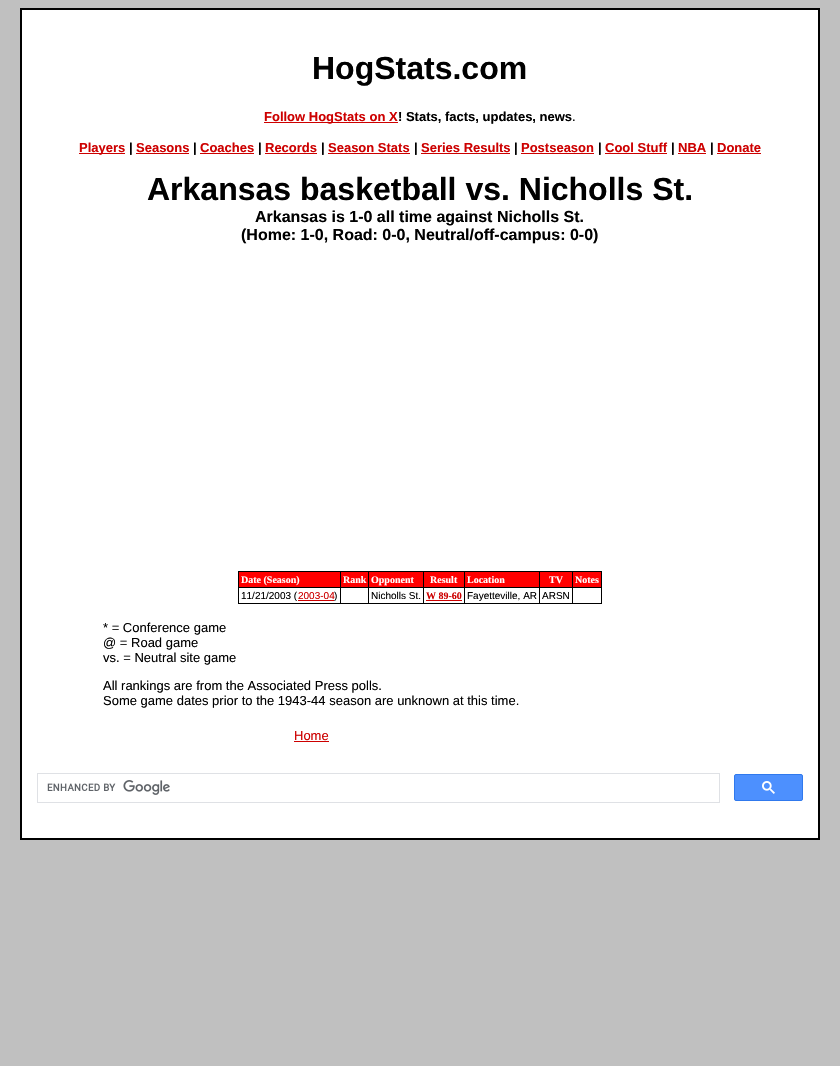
static SkFont makeFont(const char* family, int weight, float size, bool italic = false) {
  SkFontStyle style(weight, SkFontStyle::kNormal_Width,
    italic ? SkFontStyle::kItalic_Slant : SkFontStyle::kUpright_Slant);
  SkFont result(fontMgr->matchFamilyStyle(family, style), size);
  result.setSubpixel(true);
  return result;
}

static void text(SkCanvas* c, const char* s, float x, float y, const SkFont& font, SkColor color) {
  SkPaint ink(SkColor4f::FromColor(color));
  ink.setAntiAlias(true);
  c->drawString(s, x, y, font, ink);
}

static void box(SkCanvas* c, float l, float t, float r, float b, SkColor color) {
  SkPaint ink(SkColor4f::FromColor(color));
  ink.setAntiAlias(true);
  c->drawRect(SkRect::MakeLTRB(l, t, r, b), ink);
}

static void picture(SkCanvas* c, const char* path, float l, float t, float r, float b) {
  auto image = SkImages::DeferredFromEncodedData(SkData::MakeFromFileName(path));
  c->drawImageRect(image, SkRect::MakeLTRB(l, t, r, b), SkSamplingOptions());
}

void draw(SkCanvas* c) {
  SkPaint paint;
  paint.setAntiAlias(true);
  c->clear(0xffc0c0c0);
  box(c, 20, 8, 820, 840, 0xff000000);
  box(c, 22, 10, 818, 838, 0xffffffff);
  SkFont face1 = makeFont("Liberation Sans", 700, 32);
  text(c, "HogStats.com", 312, 79, face1, 0xff000000);
  box(c, 264, 122, 398, 123, 0xffcd0000);
  SkFont face2 = makeFont("Liberation Sans", 700, 13);
  text(c, "Follow HogStats on X", 264, 121, face2, 0xffcd0000);
  text(c, "! Stats, facts, updates, news", 398, 121, face2, 0xff000000);
  SkFont face3 = makeFont("Liberation Sans", 400, 13);
  text(c, ".", 572, 121, face3, 0xff000000);
  box(c, 79, 153, 125, 154, 0xffcd0000);
  text(c, "Players", 79, 152, face2, 0xffcd0000);
  text(c, "|", 129, 152, face2, 0xff000000);
  text(c, "Seasons", 136, 152, face2, 0xffcd0000);
  box(c, 136, 153, 189, 154, 0xffcd0000);
  text(c, "|", 193, 152, face2, 0xff000000);
  text(c, "Coaches", 200, 152, face2, 0xffcd0000);
  box(c, 200, 153, 254, 154, 0xffcd0000);
  text(c, "|", 258, 152, face2, 0xff000000);
  text(c, "Records", 265, 152, face2, 0xffcd0000);
  box(c, 265, 153, 317, 154, 0xffcd0000);
  text(c, "|", 321, 152, face2, 0xff000000);
  text(c, "Season Stats", 328, 152, face2, 0xffcd0000);
  box(c, 328, 153, 410, 154, 0xffcd0000);
  text(c, "|", 414, 152, face2, 0xff000000);
  text(c, "Series Results", 421, 152, face2, 0xffcd0000);
  box(c, 421, 153, 510, 154, 0xffcd0000);
  text(c, "|", 514, 152, face2, 0xff000000);
  text(c, "Postseason", 521, 152, face2, 0xffcd0000);
  box(c, 521, 153, 594, 154, 0xffcd0000);
  text(c, "|", 598, 152, face2, 0xff000000);
  text(c, "Cool Stuff", 605, 152, face2, 0xffcd0000);
  box(c, 605, 153, 667, 154, 0xffcd0000);
  text(c, "|", 671, 152, face2, 0xff000000);
  text(c, "NBA", 678, 152, face2, 0xffcd0000);
  box(c, 678, 153, 706, 154, 0xffcd0000);
  text(c, "|", 710, 152, face2, 0xff000000);
  text(c, "Donate", 717, 152, face2, 0xffcd0000);
  box(c, 717, 153, 761, 154, 0xffcd0000);
  text(c, "Arkansas basketball vs. Nicholls St.", 147, 200, face1, 0xff000000);
  SkFont face4 = makeFont("Liberation Sans", 700, 16);
  text(c, "Arkansas is 1-0 all time against Nicholls St.", 255, 222, face4, 0xff000000);
  text(c, "(Home: 1-0, Road: 0-0, Neutral/off-campus: 0-0)", 241, 240, face4, 0xff000000);
  box(c, 238, 571, 602, 604, 0xff000000);
  box(c, 239, 572, 340, 587, 0xffff0000);
  SkFont face5 = makeFont("Liberation Serif", 700, 10);
  text(c, "Date (Season)", 241, 583, face5, 0xffffffff);
  box(c, 341, 572, 368, 587, 0xffff0000);
  text(c, "Rank", 343, 583, face5, 0xffffffff);
  box(c, 369, 572, 423, 587, 0xffff0000);
  text(c, "Opponent", 371, 583, face5, 0xffffffff);
  box(c, 424, 572, 464, 587, 0xffff0000);
  text(c, "Result", 430, 583, face5, 0xffffffff);
  box(c, 465, 572, 539, 587, 0xffff0000);
  text(c, "Location", 467, 583, face5, 0xffffffff);
  box(c, 540, 572, 572, 587, 0xffff0000);
  text(c, "TV", 549, 583, face5, 0xffffffff);
  box(c, 573, 572, 601, 587, 0xffff0000);
  text(c, "Notes", 575, 583, face5, 0xffffffff);
  box(c, 239, 588, 340, 603, 0xffffffff);
  SkFont face6 = makeFont("Liberation Sans", 400, 10);
  text(c, "11/21/2003 (", 241, 599, face6, 0xff000000);
  box(c, 298, 600, 334, 601, 0xffcd0000);
  text(c, "2003-04", 298, 599, face6, 0xffcd0000);
  text(c, ")", 334, 599, face6, 0xff000000);
  box(c, 341, 588, 368, 603, 0xffffffff);
  box(c, 369, 588, 423, 603, 0xffffffff);
  text(c, "Nicholls St.", 371, 599, face6, 0xff000000);
  box(c, 424, 588, 464, 603, 0xffffffff);
  text(c, "W 89-60", 426, 599, face5, 0xffcd0000);
  box(c, 426, 600, 462, 601, 0xffcd0000);
  box(c, 465, 588, 539, 603, 0xffffffff);
  text(c, "Fayetteville, AR", 467, 599, face6, 0xff000000);
  box(c, 540, 588, 572, 603, 0xffffffff);
  text(c, "ARSN", 542, 599, face6, 0xff000000);
  box(c, 573, 588, 601, 603, 0xffffffff);
  text(c, "* = Conference game", 103, 632, face3, 0xff000000);
  text(c, "@ = Road game", 103, 647, face3, 0xff000000);
  text(c, "vs. = Neutral site game", 103, 662, face3, 0xff000000);
  text(c, "All rankings are from the Associated Press polls.", 103, 690, face3, 0xff000000);
  text(c, "Some game dates prior to the 1943-44 season are unknown at this time.", 103, 705, face3, 0xff000000);
  text(c, "Home", 294, 740, face3, 0xffcd0000);
  box(c, 294, 741, 329, 742, 0xffcd0000);
  paint.setStyle(SkPaint::kStroke_Style);
  paint.setStrokeWidth(1);
  paint.setColor(0xffdfe1e5);
  c->drawRect(SkRect::MakeLTRB(37.5f, 773.5f, 719.5f, 802.5f), paint);
  picture(c, "img_01.png", 47, 780, 170, 795);
  paint.setStyle(SkPaint::kFill_Style);
  paint.setColor(0xff4d90fe);
  c->drawRoundRect(SkRect::MakeLTRB(734.5f, 774.5f, 802.5f, 800.5f), 1.5f, 1.5f, paint);
  paint.setStyle(SkPaint::kStroke_Style);
  paint.setColor(0xff3079ed);
  c->drawRoundRect(SkRect::MakeLTRB(734.5f, 774.5f, 802.5f, 800.5f), 1.5f, 1.5f, paint);
  picture(c, "img_02.png", 762, 781, 775, 794);
}
